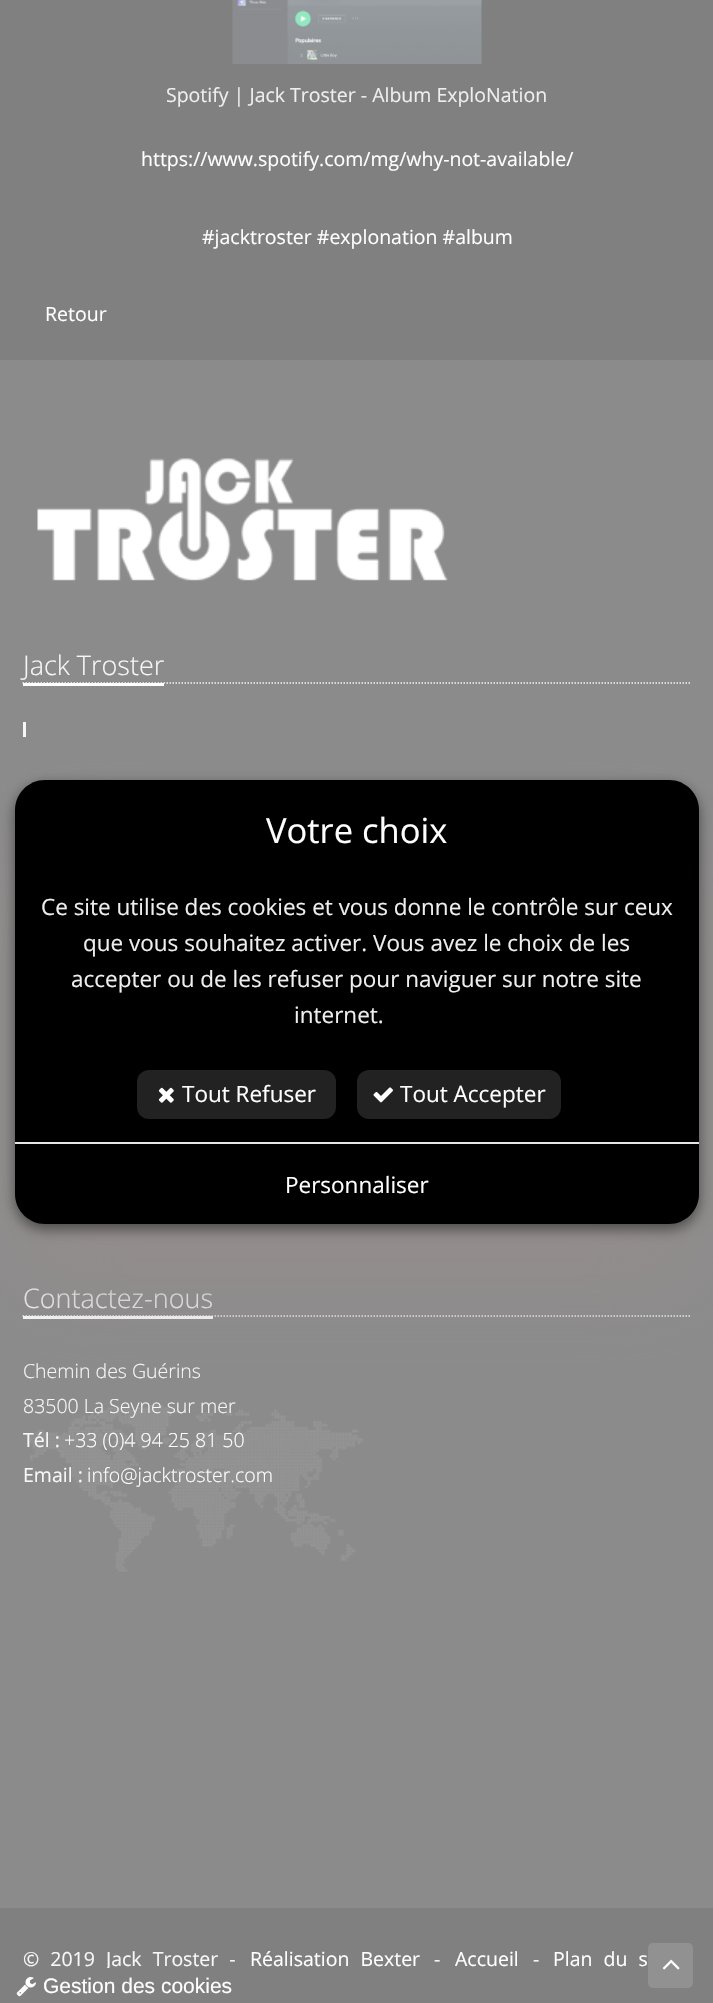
static SkFont makeFont(const char* family, int weight, float size, bool italic = false) {
  SkFontStyle style(weight, SkFontStyle::kNormal_Width,
    italic ? SkFontStyle::kItalic_Slant : SkFontStyle::kUpright_Slant);
  SkFont result(fontMgr->matchFamilyStyle(family, style), size);
  result.setSubpixel(true);
  return result;
}

static void text(SkCanvas* c, const char* s, float x, float y, const SkFont& font, SkColor color) {
  SkPaint ink(SkColor4f::FromColor(color));
  ink.setAntiAlias(true);
  c->drawString(s, x, y, font, ink);
}

static void spacedText(SkCanvas* c, const char* s, float x, float y, const SkFont& font, const SkPaint& ink, float letter, float word) {
  std::vector<SkGlyphID> glyphs(font.countText(s, strlen(s), SkTextEncoding::kUTF8));
  std::vector<float> xs(glyphs.size());
  font.textToGlyphs(s, strlen(s), SkTextEncoding::kUTF8, glyphs);
  font.getXPos(glyphs, xs, x);
  float extra = 0;
  for (size_t i = 0; i < glyphs.size(); i++) {
    xs[i] += extra;
    extra += letter + word * (glyphs[i] == font.unicharToGlyph(' '));
  }
  c->drawTextBlob(SkTextBlob::MakeFromPosHGlyphs(glyphs, xs, y, font), 0, 0, ink);
}

static void box(SkCanvas* c, float l, float t, float r, float b, SkColor color) {
  SkPaint ink(SkColor4f::FromColor(color));
  ink.setAntiAlias(true);
  c->drawRect(SkRect::MakeLTRB(l, t, r, b), ink);
}

static void roundBox(SkCanvas* c, float l, float t, float r, float b, float radius, SkColor color) {
  SkPaint ink(SkColor4f::FromColor(color));
  ink.setAntiAlias(true);
  c->drawRoundRect(SkRect::MakeLTRB(l, t, r, b), radius, radius, ink);
}

static void picture(SkCanvas* c, const char* path, float l, float t, float r, float b) {
  auto image = SkImages::DeferredFromEncodedData(SkData::MakeFromFileName(path));
  c->drawImageRect(image, SkRect::MakeLTRB(l, t, r, b), SkSamplingOptions());
}

void draw(SkCanvas* c) {
  SkPaint paint;
  paint.setAntiAlias(true);
  c->clear(0xff808080);
  picture(c, "img_01.png", 232, 0, 482, 64);
  SkFont face1 = makeFont("Open Sans", 400, 19.5f);
  text(c, "Spotify | Jack Troster - Album ExploNation", 166, 102, face1, 0xffeeeeee);
  text(c, "https://www.spotify.com/mg/why-not-available/", 141, 166, face1, 0xffffffff);
  text(c, "#jacktroster #explonation #album", 202, 244, face1, 0xffffffff);
  text(c, "Retour", 45, 321, face1, 0xffffffff);
  box(c, 0, 360, 713, 1908, 0xff8b8b8b);
  picture(c, "img_02.png", 37, 458, 448, 581);
  paint.setStyle(SkPaint::kStroke_Style);
  paint.setStrokeWidth(1.5f);
  paint.setColor(0xfff2f4f8);
  paint.setPathEffect(SkDashPathEffect::Make({{1.5f, 1.5f}}, 0));
  c->drawPath(SkPathBuilder().moveTo(22.5f, 683).lineTo(691.5f, 683).detach(), paint);
  paint.setPathEffect(nullptr);
  box(c, 23, 683, 164, 686, 0xffffffff);
  SkFont face2 = makeFont("Open Sans", 300, 27);
  text(c, "Jack Troster", 23, 675, face2, 0xfff7f7f7);
  box(c, 23, 722, 26, 737, 0xfff7f7f7);
  picture(c, "img_03.png", 30, 1405, 364, 1572);
  paint.setPathEffect(SkDashPathEffect::Make({{1.5f, 1.5f}}, 0));
  c->drawPath(SkPathBuilder().moveTo(22.5f, 1316).lineTo(691.5f, 1316).detach(), paint);
  paint.setPathEffect(nullptr);
  box(c, 23, 1316, 213, 1319, 0xffffffff);
  text(c, "Contactez-nous", 23, 1308, face2, 0xfff7f7f7);
  SkFont face3 = makeFont("Open Sans", 300, 19.5f);
  text(c, "Chemin des Guérins", 23, 1378, face3, 0xfff7f7f7);
  text(c, "83500 La Seyne sur mer", 23, 1413, face3, 0xfff7f7f7);
  text(c, "Tél :", 23, 1447, face1, 0xfff7f7f7);
  text(c, "+33 (0)4 94 25 81 50", 64, 1447, face3, 0xffffffff);
  text(c, "Email :", 23, 1482, face1, 0xfff7f7f7);
  text(c, "info@jacktroster.com", 87, 1482, face3, 0xffffffff);
  paint.setStyle(SkPaint::kFill_Style);
  paint.setColor(0xfff7f7f7);
  spacedText(c, "© 2019 Jack Troster -", 23, 1966, face1, paint, 0, 6);
  paint.setColor(0xffffffff);
  spacedText(c, "Réalisation Bexter", 250, 1966, face1, paint, 0, 6);
  text(c, "-", 434, 1966, face1, 0xfff7f7f7);
  text(c, "Accueil", 455, 1966, face1, 0xffffffff);
  text(c, "-", 533, 1966, face1, 0xfff7f7f7);
  spacedText(c, "Plan du s", 553, 1966, face1, paint, 0, 6);
  paint.setColor(0xe0958d8d);
  paint.setMaskFilter(SkMaskFilter::MakeBlur(kNormal_SkBlurStyle, 45));
  c->drawRoundRect(SkRect::MakeLTRB(15, 840, 699, 1284), 30, 30, paint);
  paint.setMaskFilter(nullptr);
  paint.setColor(0x80000000);
  paint.setMaskFilter(SkMaskFilter::MakeBlur(kNormal_SkBlurStyle, 7));
  c->drawRoundRect(SkRect::MakeLTRB(15, 785, 699, 1229), 30, 30, paint);
  paint.setMaskFilter(nullptr);
  paint.setColor(0xff000000);
  c->drawPath(SkPathBuilder().moveTo(45, 780).lineTo(669, 780).cubicTo(685.5f, 780, 699, 793.5f, 699, 810).lineTo(699, 1142).lineTo(15, 1142).lineTo(15, 810).cubicTo(15, 793.5f, 28.5f, 780, 45, 780).close().detach(), paint);
  SkFont face4 = makeFont("Open Sans", 400, 34.5f);
  text(c, "Votre choix", 266, 843, face4, 0xffffffff);
  SkFont face5 = makeFont("Open Sans", 400, 22.5f);
  text(c, "Ce site utilise des cookies et vous donne le contrôle sur ceux", 41, 915, face5, 0xffeeeeee);
  text(c, "que vous souhaitez activer. Vous avez le choix de les", 83, 951, face5, 0xffeeeeee);
  text(c, "accepter ou de les refuser pour naviguer sur notre site", 71, 987, face5, 0xffeeeeee);
  text(c, "internet.", 294, 1023, face5, 0xffeeeeee);
  roundBox(c, 137, 1070, 336, 1119, 12, 0xff222222);
  picture(c, "img_04.png", 158, 1087, 174, 1103);
  text(c, "Tout Refuser", 182, 1102, face5, 0xffffffff);
  roundBox(c, 357, 1070, 561, 1119, 12, 0xff222222);
  picture(c, "img_05.png", 373, 1087, 393, 1103);
  text(c, "Tout Accepter", 400, 1102, face5, 0xffffffff);
  c->drawPath(SkPathBuilder().moveTo(15, 1142).lineTo(699, 1142).lineTo(699, 1194).cubicTo(699, 1210.5f, 685.5f, 1224, 669, 1224).lineTo(45, 1224).cubicTo(28.5f, 1224, 15, 1210.5f, 15, 1194).close().detach(), paint);
  box(c, 15, 1142, 699, 1144, 0xffe5e5e5);
  text(c, "Personnaliser", 285, 1193, face5, 0xffffffff);
  box(c, 104, 1968, 109, 1970, 0xff808080);
  picture(c, "img_06.png", 16, 1977, 36, 1997);
  SkFont face6 = makeFont("Liberation Sans", 400, 21);
  text(c, "Gestion des cookies", 43, 1993, face6, 0xffffffff);
  roundBox(c, 648, 1943, 693, 1988, 5, 0xff919191);
  picture(c, "img_07.png", 662, 1959, 680, 1970);
}
